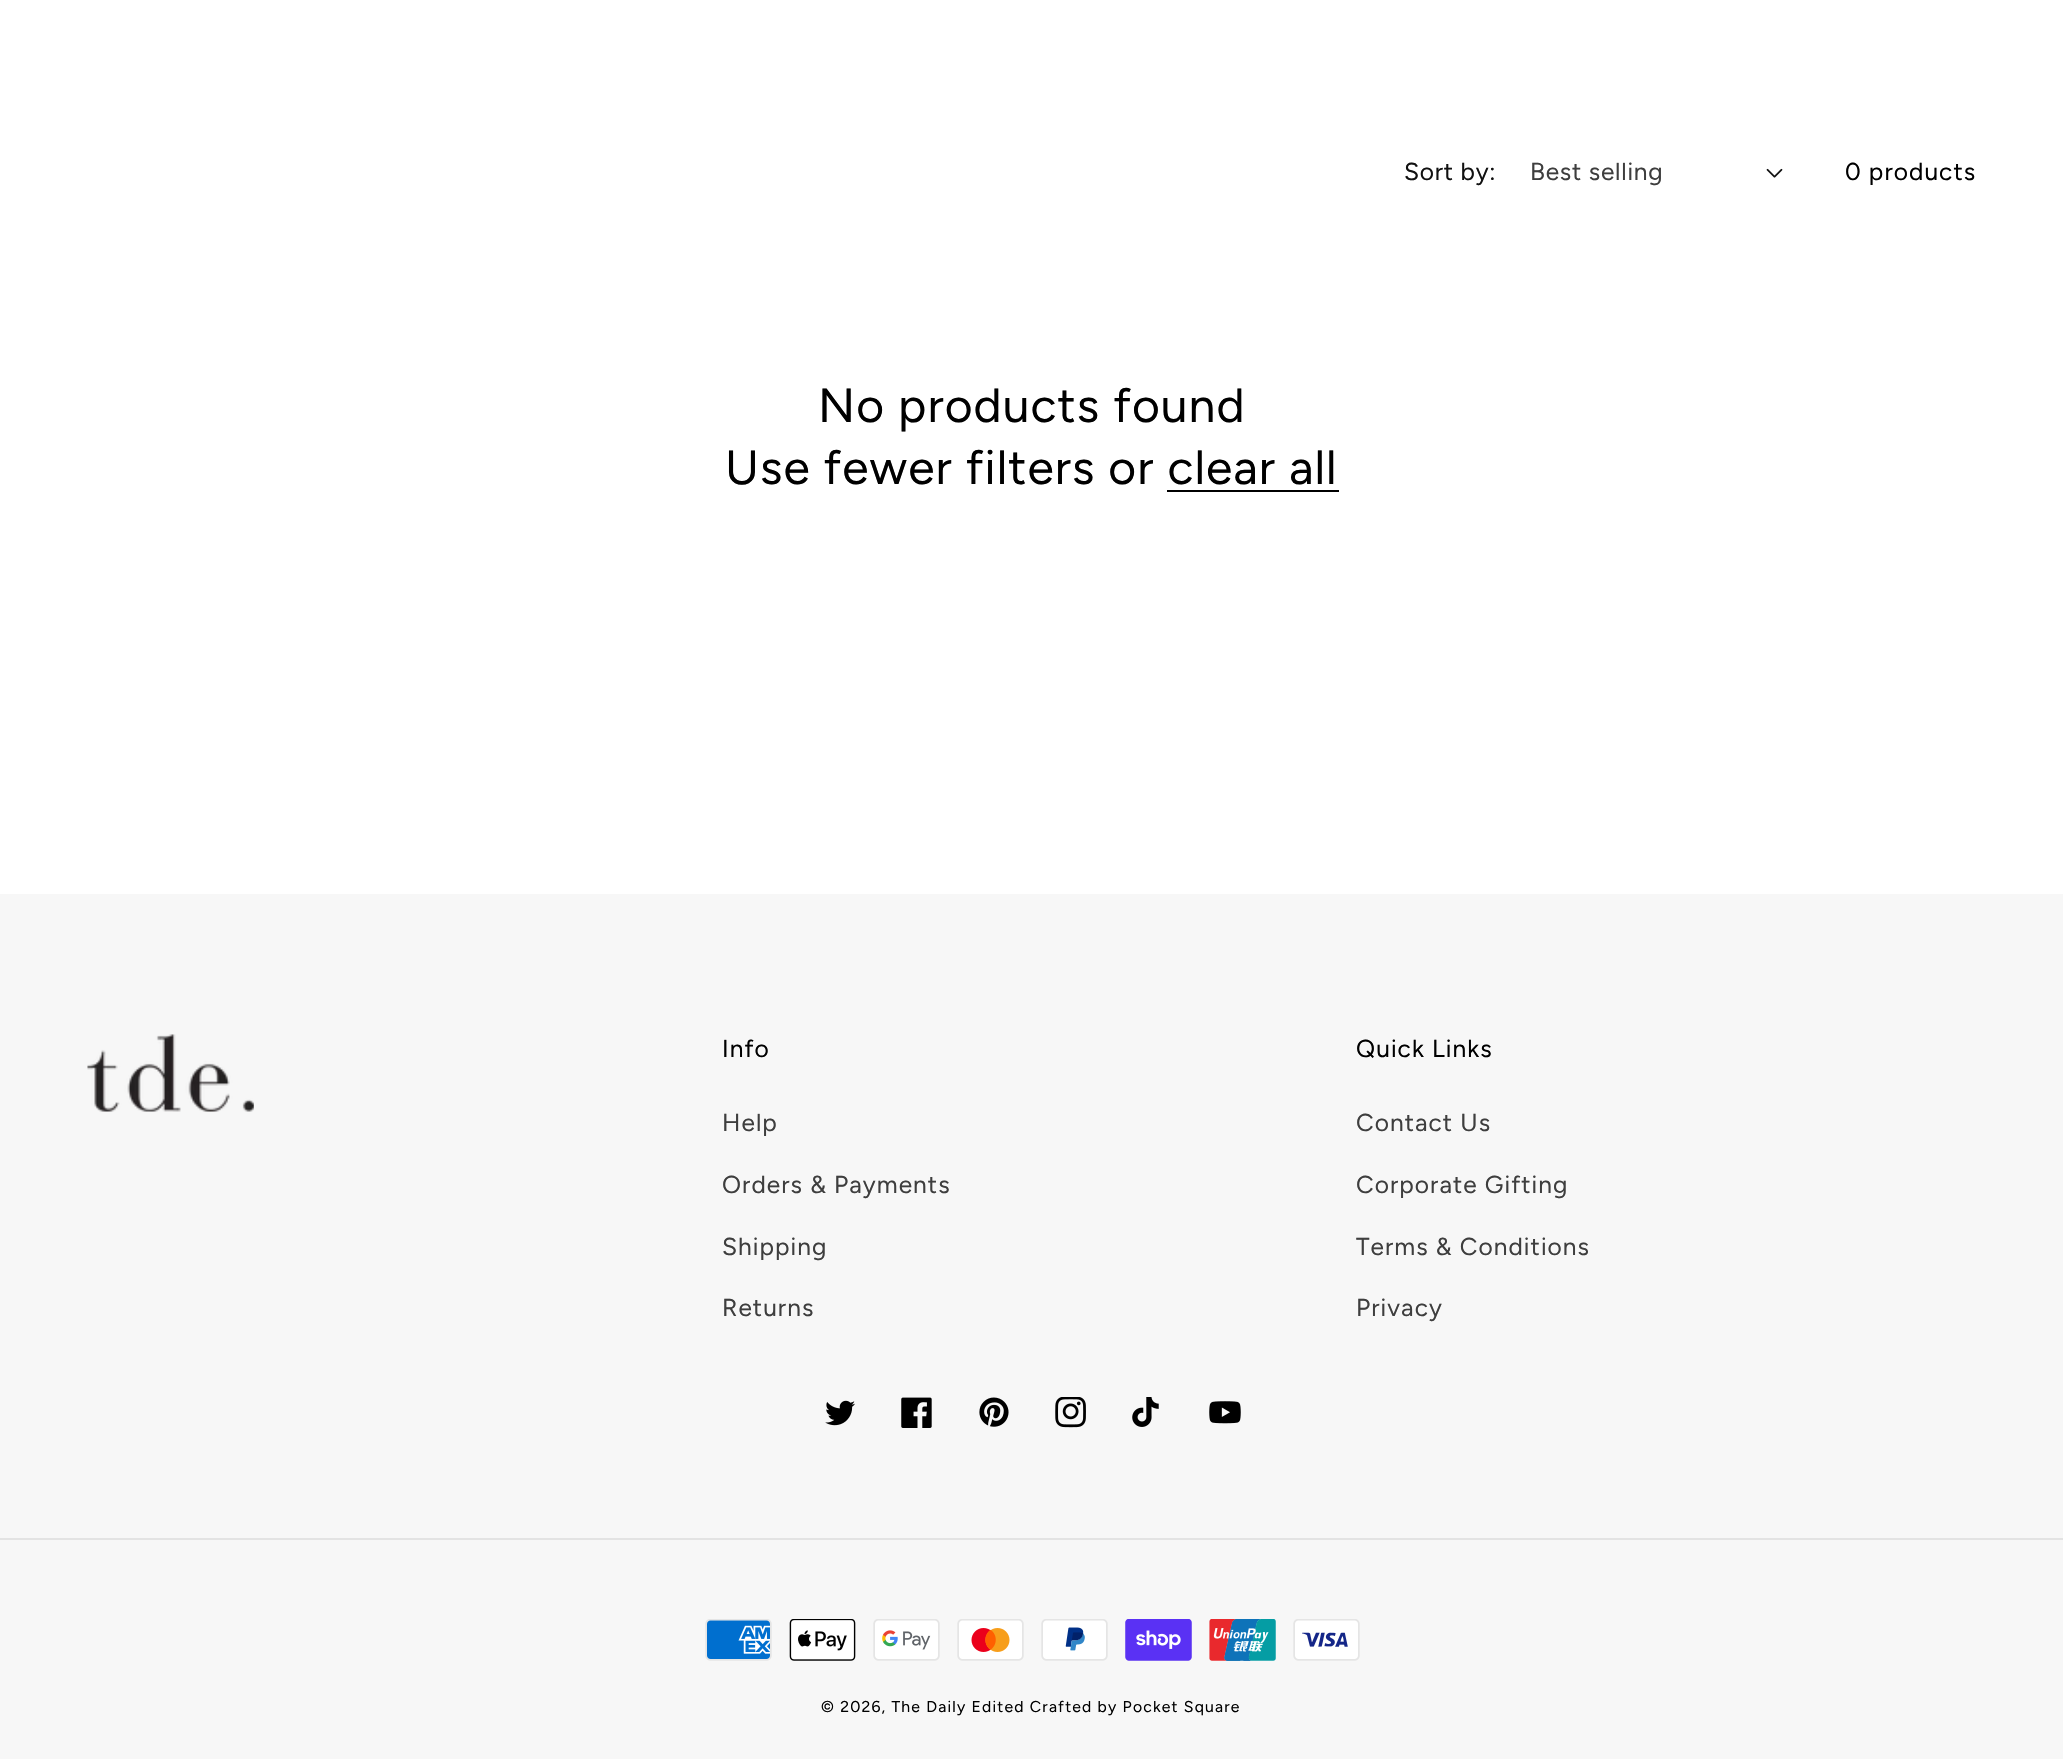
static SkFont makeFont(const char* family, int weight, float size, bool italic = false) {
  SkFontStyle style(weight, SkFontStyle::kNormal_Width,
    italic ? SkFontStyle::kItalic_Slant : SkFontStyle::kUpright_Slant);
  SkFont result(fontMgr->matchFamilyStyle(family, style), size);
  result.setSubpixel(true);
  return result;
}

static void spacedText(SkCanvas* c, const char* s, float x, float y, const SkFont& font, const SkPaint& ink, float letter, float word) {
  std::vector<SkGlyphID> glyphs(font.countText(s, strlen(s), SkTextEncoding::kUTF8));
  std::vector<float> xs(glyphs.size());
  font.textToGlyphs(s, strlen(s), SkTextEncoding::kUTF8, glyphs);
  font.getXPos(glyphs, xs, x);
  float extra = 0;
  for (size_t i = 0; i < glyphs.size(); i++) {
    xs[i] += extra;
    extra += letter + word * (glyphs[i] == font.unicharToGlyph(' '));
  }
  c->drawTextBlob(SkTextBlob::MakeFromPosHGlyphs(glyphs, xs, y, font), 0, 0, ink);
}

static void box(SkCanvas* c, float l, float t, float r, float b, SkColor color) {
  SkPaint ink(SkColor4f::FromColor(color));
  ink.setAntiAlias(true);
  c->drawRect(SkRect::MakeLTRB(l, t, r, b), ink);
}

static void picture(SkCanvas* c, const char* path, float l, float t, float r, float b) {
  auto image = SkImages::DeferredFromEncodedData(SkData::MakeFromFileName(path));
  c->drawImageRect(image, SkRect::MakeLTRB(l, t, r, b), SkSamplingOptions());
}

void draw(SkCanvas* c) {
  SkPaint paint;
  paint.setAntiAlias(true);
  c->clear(0xffffffff);
  SkFont face1 = makeFont("Figtree", 400, 24.5f);
  paint.setColor(0xff111111);
  spacedText(c, "Sort by:", 1404, 180, face1, paint, 0.75f, 0);
  paint.setColor(0xff3e3e3e);
  spacedText(c, "Best selling", 1530, 180, face1, paint, 0.75f, 0);
  picture(c, "img_01.png", 1766, 168, 1783, 178);
  paint.setColor(0xff000000);
  spacedText(c, "0 products", 1845, 180, face1, paint, 1.05f, 0);
  SkFont face2 = makeFont("Figtree", 400, 48);
  spacedText(c, "No products found", 818, 422, face2, paint, 1.05f, 0);
  spacedText(c, "Use fewer filters or clear all", 725, 484, face2, paint, 1.05f, 0);
  box(c, 1167, 490, 1339, 492, 0xff000000);
  box(c, 0, 894, 2063, 1759, 0xfff7f7f7);
  picture(c, "img_02.png", 87, 1034, 254, 1112);
  spacedText(c, "Info", 722, 1057, face1, paint, 1.05f, 0);
  paint.setColor(0xff3e3e3e);
  spacedText(c, "Help", 722, 1131, face1, paint, 1.05f, 0);
  spacedText(c, "Orders & Payments", 722, 1193, face1, paint, 1.05f, 0);
  spacedText(c, "Shipping", 722, 1255, face1, paint, 1.05f, 0);
  spacedText(c, "Returns", 722, 1316, face1, paint, 1.05f, 0);
  paint.setColor(0xff000000);
  spacedText(c, "Quick Links", 1356, 1057, face1, paint, 1.05f, 0);
  paint.setColor(0xff3e3e3e);
  spacedText(c, "Contact Us", 1356, 1131, face1, paint, 1.05f, 0);
  spacedText(c, "Corporate Gifting", 1356, 1193, face1, paint, 1.05f, 0);
  spacedText(c, "Terms & Conditions", 1356, 1255, face1, paint, 1.05f, 0);
  spacedText(c, "Privacy", 1356, 1316, face1, paint, 1.05f, 0);
  picture(c, "img_03.png", 825, 1400, 855, 1426);
  picture(c, "img_04.png", 901, 1397, 932, 1428);
  picture(c, "img_05.png", 979, 1397, 1009, 1427);
  picture(c, "img_06.png", 1055, 1397, 1086, 1428);
  picture(c, "img_07.png", 1132, 1397, 1159, 1427);
  picture(c, "img_08.png", 1209, 1401, 1241, 1424);
  box(c, 0, 1538, 2063, 1540, 0xffe3e3e3);
  picture(c, "img_09.png", 705, 1619, 772, 1661);
  picture(c, "img_10.png", 789, 1619, 856, 1661);
  picture(c, "img_11.png", 873, 1619, 940, 1661);
  picture(c, "img_12.png", 957, 1619, 1024, 1661);
  picture(c, "img_13.png", 1041, 1619, 1108, 1661);
  picture(c, "img_14.png", 1125, 1619, 1192, 1661);
  picture(c, "img_15.png", 1209, 1619, 1276, 1661);
  picture(c, "img_16.png", 1293, 1619, 1360, 1661);
  SkFont face3 = makeFont("Figtree", 400, 15.75f);
  paint.setColor(0xff000000);
  spacedText(c, "© 2026, The Daily Edited Crafted by Pocket Square", 821, 1712, face3, paint, 1.2f, 0);
}
